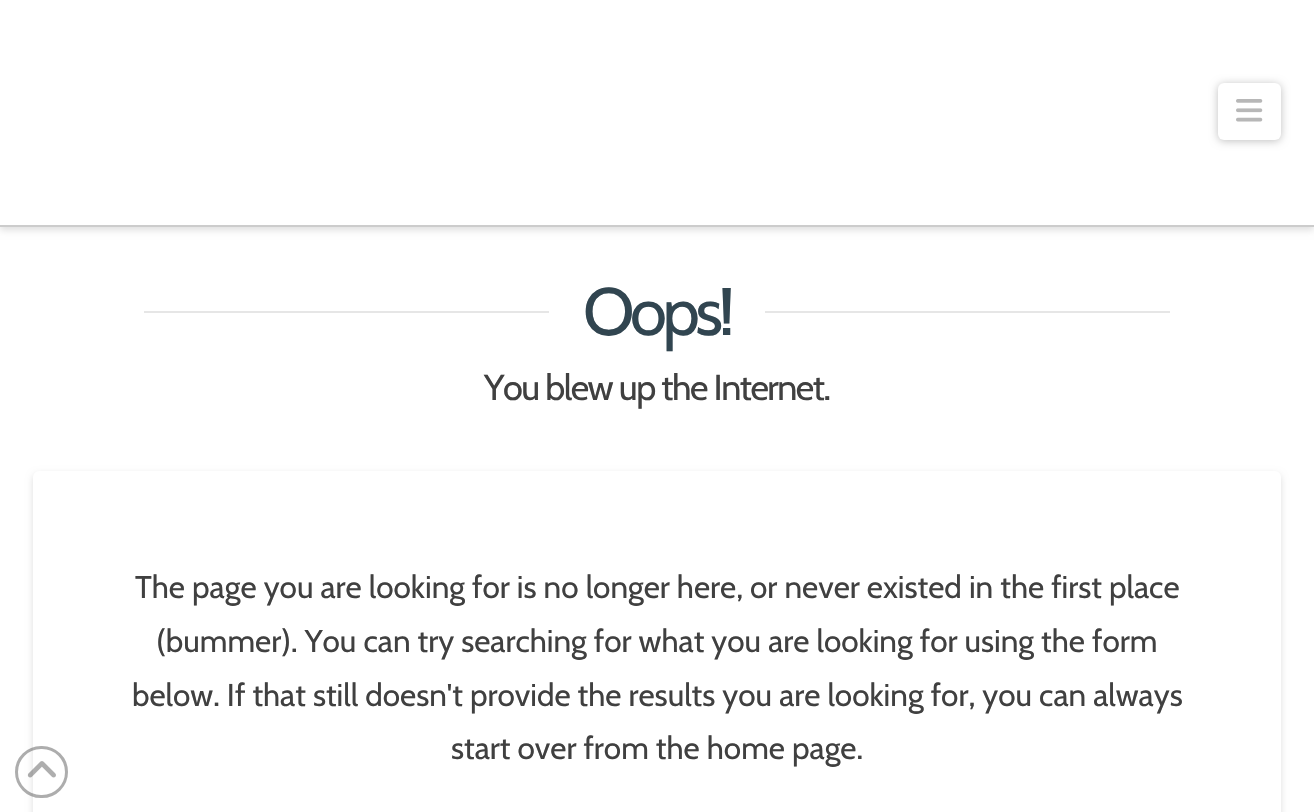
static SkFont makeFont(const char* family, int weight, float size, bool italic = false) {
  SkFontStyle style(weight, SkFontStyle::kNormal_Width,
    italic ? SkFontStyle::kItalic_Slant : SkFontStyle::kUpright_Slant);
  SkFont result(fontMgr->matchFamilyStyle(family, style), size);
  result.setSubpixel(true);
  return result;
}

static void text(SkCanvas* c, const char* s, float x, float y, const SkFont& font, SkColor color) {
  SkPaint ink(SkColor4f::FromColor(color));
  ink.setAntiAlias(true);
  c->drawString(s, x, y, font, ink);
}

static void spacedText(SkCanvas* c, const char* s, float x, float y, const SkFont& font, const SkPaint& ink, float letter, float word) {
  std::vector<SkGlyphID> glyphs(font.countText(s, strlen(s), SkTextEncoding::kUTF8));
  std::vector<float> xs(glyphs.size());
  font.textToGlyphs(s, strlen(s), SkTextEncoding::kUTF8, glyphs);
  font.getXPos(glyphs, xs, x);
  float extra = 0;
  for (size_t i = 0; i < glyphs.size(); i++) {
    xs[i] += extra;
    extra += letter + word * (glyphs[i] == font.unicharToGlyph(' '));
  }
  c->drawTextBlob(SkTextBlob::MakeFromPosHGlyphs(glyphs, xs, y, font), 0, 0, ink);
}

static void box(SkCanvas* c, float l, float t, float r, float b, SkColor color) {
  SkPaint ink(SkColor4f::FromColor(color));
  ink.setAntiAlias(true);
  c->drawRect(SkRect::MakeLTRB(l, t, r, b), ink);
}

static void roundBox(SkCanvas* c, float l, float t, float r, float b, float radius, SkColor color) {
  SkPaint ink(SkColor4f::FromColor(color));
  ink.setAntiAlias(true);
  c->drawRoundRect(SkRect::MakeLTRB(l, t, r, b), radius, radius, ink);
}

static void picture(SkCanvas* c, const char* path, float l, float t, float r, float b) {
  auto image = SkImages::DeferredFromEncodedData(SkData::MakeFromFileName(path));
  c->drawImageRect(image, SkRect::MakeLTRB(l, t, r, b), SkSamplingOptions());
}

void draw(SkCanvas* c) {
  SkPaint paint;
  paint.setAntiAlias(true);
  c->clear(0xffffffff);
  paint.setColor(0x21000000);
  paint.setMaskFilter(SkMaskFilter::MakeBlur(kNormal_SkBlurStyle, 3.5f));
  c->drawRoundRect(SkRect::MakeLTRB(33, 474, 1281, 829), 6, 6, paint);
  paint.setMaskFilter(nullptr);
  roundBox(c, 33, 471, 1281, 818, 6, 0xffffffff);
  paint.setStyle(SkPaint::kStroke_Style);
  paint.setStrokeWidth(3);
  paint.setColor(0x61272727);
  c->drawRoundRect(SkRect::MakeLTRB(16.5f, 747.5f, 66.5f, 796.5f), 24.5f, 24.5f, paint);
  picture(c, "img_01.png", 27, 761, 56, 778);
  paint.setStyle(SkPaint::kFill_Style);
  paint.setColor(0x21000000);
  paint.setMaskFilter(SkMaskFilter::MakeBlur(kNormal_SkBlurStyle, 3.5f));
  c->drawRect(SkRect::MakeLTRB(0, 3, 1314, 230), paint);
  paint.setMaskFilter(nullptr);
  box(c, 0, 0, 1314, 225, 0xffffffff);
  box(c, 0, 225, 1314, 227, 0xffcccccc);
  paint.setColor(0x40000000);
  paint.setMaskFilter(SkMaskFilter::MakeBlur(kNormal_SkBlurStyle, 4));
  c->drawRoundRect(SkRect::MakeLTRB(1218, 84, 1281, 141), 6, 6, paint);
  paint.setMaskFilter(nullptr);
  roundBox(c, 1218, 83, 1281, 140, 6, 0xffffffff);
  picture(c, "img_02.png", 1236, 99, 1263, 122);
  box(c, 144, 311, 549, 313, 0xffe6e6e6);
  SkFont face1 = makeFont("Cabin", 400, 67);
  paint.setColor(0xff314550);
  spacedText(c, "Oops!", 583, 335, face1, paint, -4.5f, 0);
  box(c, 765, 311, 1170, 313, 0xffe6e6e6);
  SkFont face2 = makeFont("Cabin", 400, 36);
  paint.setColor(0xff404040);
  spacedText(c, "You blew up the Internet.", 484, 400, face2, paint, -1.5f, 0);
  SkFont face3 = makeFont("Cabin", 400, 31.5f);
  text(c, "The page you are looking for is no longer here, or never existed in the first place", 135, 598, face3, 0xff404040);
  text(c, "(bummer). You can try searching for what you are looking for using the form", 156, 652, face3, 0xff404040);
  text(c, "below. If that still doesn't provide the results you are looking for, you can always", 132, 706, face3, 0xff404040);
  text(c, "start over from the home page.", 451, 759, face3, 0xff404040);
}
